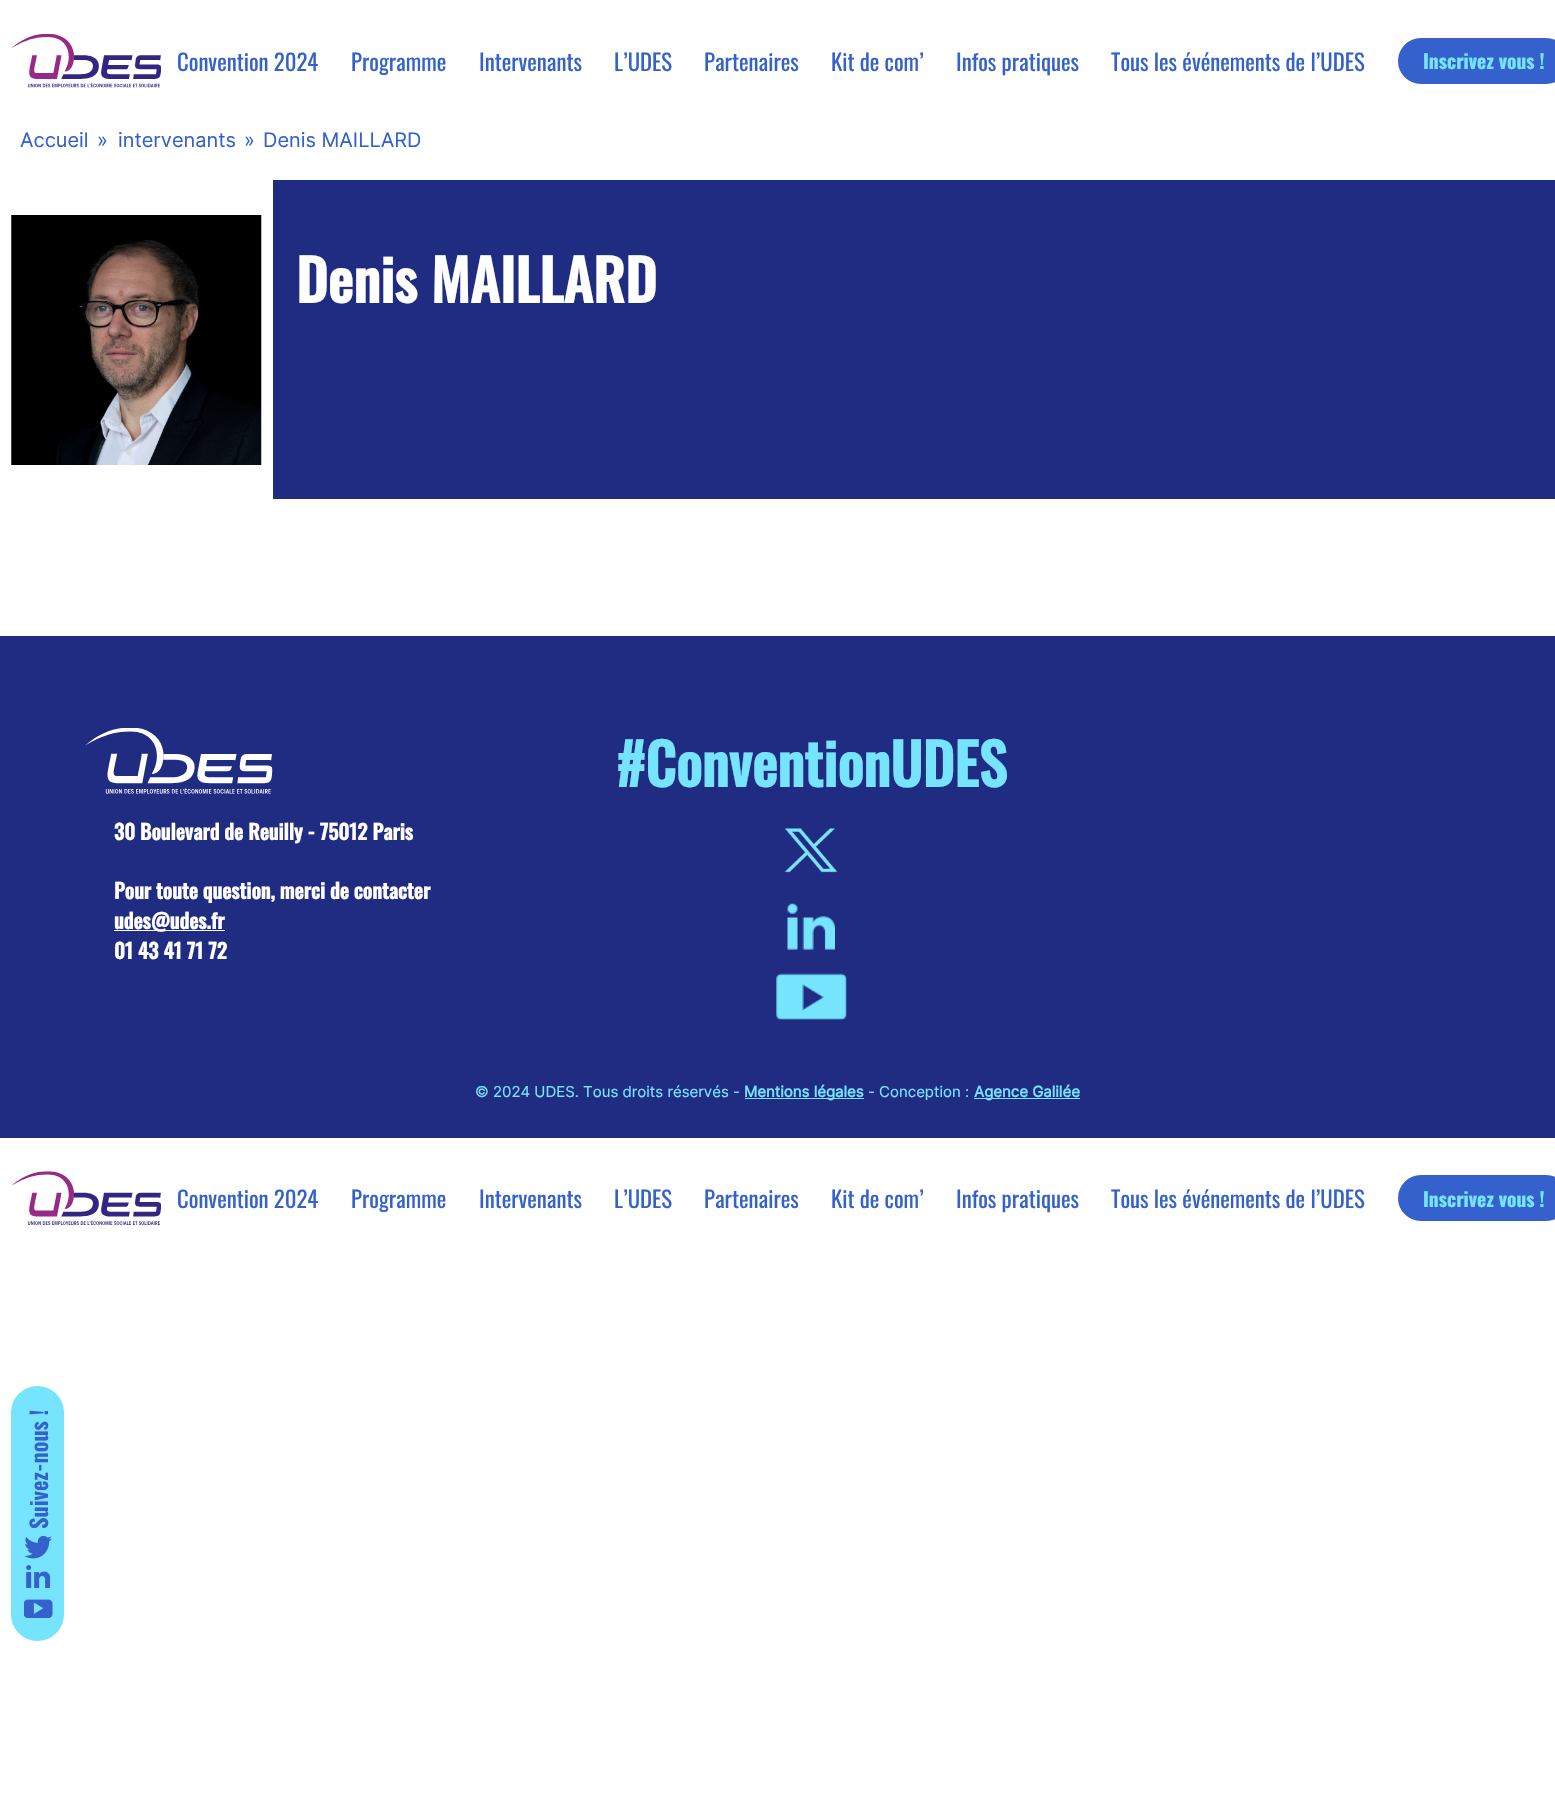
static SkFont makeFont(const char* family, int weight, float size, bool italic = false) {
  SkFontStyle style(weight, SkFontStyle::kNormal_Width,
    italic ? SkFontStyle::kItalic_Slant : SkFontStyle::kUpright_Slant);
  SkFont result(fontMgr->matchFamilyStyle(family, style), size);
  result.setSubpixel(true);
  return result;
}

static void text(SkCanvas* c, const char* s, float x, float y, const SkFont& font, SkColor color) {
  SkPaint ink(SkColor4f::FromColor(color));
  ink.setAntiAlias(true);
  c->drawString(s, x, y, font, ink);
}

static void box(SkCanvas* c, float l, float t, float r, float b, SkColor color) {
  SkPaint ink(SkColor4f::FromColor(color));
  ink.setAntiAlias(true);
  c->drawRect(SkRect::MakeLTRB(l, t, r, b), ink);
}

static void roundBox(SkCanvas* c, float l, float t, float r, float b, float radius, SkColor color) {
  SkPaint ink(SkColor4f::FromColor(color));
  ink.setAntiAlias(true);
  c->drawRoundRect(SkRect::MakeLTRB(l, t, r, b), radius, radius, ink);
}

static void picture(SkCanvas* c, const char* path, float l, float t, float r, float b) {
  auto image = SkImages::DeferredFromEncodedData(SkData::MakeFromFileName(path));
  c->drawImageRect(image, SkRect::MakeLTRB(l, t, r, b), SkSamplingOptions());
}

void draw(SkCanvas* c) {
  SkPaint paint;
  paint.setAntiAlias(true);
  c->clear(0xffffffff);
  picture(c, "img_01.png", 11, 34, 161, 88);
  SkFont face1 = makeFont("Oswald", 400, 22.75f);
  text(c, "Convention 2024", 177, 71, face1, 0xff3461cc);
  text(c, "Programme", 351, 71, face1, 0xff3461cc);
  text(c, "Intervenants", 479, 71, face1, 0xff3461cc);
  text(c, "L’UDES", 614, 71, face1, 0xff3461cc);
  text(c, "Partenaires", 704, 71, face1, 0xff3461cc);
  text(c, "Kit de com’", 831, 71, face1, 0xff3461cc);
  text(c, "Infos pratiques", 956, 71, face1, 0xff3461cc);
  text(c, "Tous les événements de l’UDES", 1111, 71, face1, 0xff3461cc);
  paint.setColor(0xff3461cc);
  c->drawRoundRect(SkRect::MakeLTRB(1399.5f, 39.5f, 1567.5f, 82.5f), 21.5f, 21.5f, paint);
  paint.setStyle(SkPaint::kStroke_Style);
  paint.setStrokeWidth(3);
  c->drawRoundRect(SkRect::MakeLTRB(1399.5f, 39.5f, 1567.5f, 82.5f), 21.5f, 21.5f, paint);
  SkFont face2 = makeFont("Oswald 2", 700, 19.5f);
  text(c, "Inscrivez vous !", 1423, 69, face2, 0xff77e4fe);
  SkFont face3 = makeFont("Inter", 400, 20);
  text(c, "Accueil", 20, 147, face3, 0xff3461cc);
  text(c, "»", 97, 147, face3, 0xff3461cc);
  text(c, "intervenants", 118, 147, face3, 0xff3461cc);
  text(c, "»", 244, 147, face3, 0xff3461cc);
  text(c, "Denis MAILLARD", 263, 147, face3, 0xff3461cc);
  box(c, 273, 180, 1555, 499, 0xff202b82);
  picture(c, "img_02.png", 11, 215, 262, 465);
  SkFont face4 = makeFont("Oswald", 700, 57);
  text(c, "Denis MAILLARD", 296, 303, face4, 0xffffffff);
  box(c, 0, 636, 1555, 1138, 0xff202b82);
  text(c, "#ConventionUDES", 616, 787, face4, 0xff77e4fe);
  picture(c, "img_03.png", 784, 828, 838, 873);
  picture(c, "img_04.png", 787, 903, 835, 950);
  picture(c, "img_05.png", 776, 973, 847, 1020);
  picture(c, "img_06.png", 85, 728, 273, 794);
  SkFont face5 = makeFont("Oswald", 700, 20.5f);
  text(c, "30 Boulevard de Reuilly - 75012 Paris", 114, 840, face5, 0xffffffff);
  text(c, "Pour toute question, merci de contacter", 114, 899, face5, 0xffffffff);
  box(c, 114, 930, 225, 931, 0xffffffff);
  text(c, "udes@udes.fr", 114, 929, face5, 0xffffffff);
  text(c, "01 43 41 71 72", 114, 959, face5, 0xffffffff);
  SkFont face6 = makeFont("Inter", 400, 15);
  text(c, "© 2024 UDES. Tous droits réservés -", 475, 1097, face6, 0xff77e4fe);
  box(c, 745, 1098, 864, 1099, 0xff77e4fe);
  SkFont face7 = makeFont("Inter", 700, 15);
  text(c, "Mentions légales", 744, 1097, face7, 0xff77e4fe);
  text(c, "- Conception :", 868, 1097, face6, 0xff77e4fe);
  box(c, 974, 1098, 1080, 1099, 0xff77e4fe);
  text(c, "Agence Galilée", 974, 1097, face7, 0xff77e4fe);
  picture(c, "img_07.png", 11, 1171, 161, 1225);
  text(c, "Convention 2024", 177, 1208, face1, 0xff3461cc);
  text(c, "Programme", 351, 1208, face1, 0xff3461cc);
  text(c, "Intervenants", 479, 1208, face1, 0xff3461cc);
  text(c, "L’UDES", 614, 1208, face1, 0xff3461cc);
  text(c, "Partenaires", 704, 1208, face1, 0xff3461cc);
  text(c, "Kit de com’", 831, 1208, face1, 0xff3461cc);
  text(c, "Infos pratiques", 956, 1208, face1, 0xff3461cc);
  text(c, "Tous les événements de l’UDES", 1111, 1208, face1, 0xff3461cc);
  paint.setStyle(SkPaint::kFill_Style);
  c->drawRoundRect(SkRect::MakeLTRB(1399.5f, 1176.5f, 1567.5f, 1219.5f), 21.5f, 21.5f, paint);
  paint.setStyle(SkPaint::kStroke_Style);
  c->drawRoundRect(SkRect::MakeLTRB(1399.5f, 1176.5f, 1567.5f, 1219.5f), 21.5f, 21.5f, paint);
  text(c, "Inscrivez vous !", 1423, 1207, face2, 0xff77e4fe);
  roundBox(c, 11, 1386, 64, 1641, 26.5f, 0xff77e4fe);
  SkFont face8 = makeFont("Oswald", 600, 22.75f);
  c->save();
  c->rotate(-90, 48, 1529);
  text(c, "Suivez-nous !", 48, 1529, face8, 0xff3461cc);
  c->restore();
  picture(c, "img_08.png", 24, 1535, 52, 1559);
  picture(c, "img_09.png", 26, 1565, 51, 1588);
  picture(c, "img_10.png", 24, 1599, 53, 1618);
}
